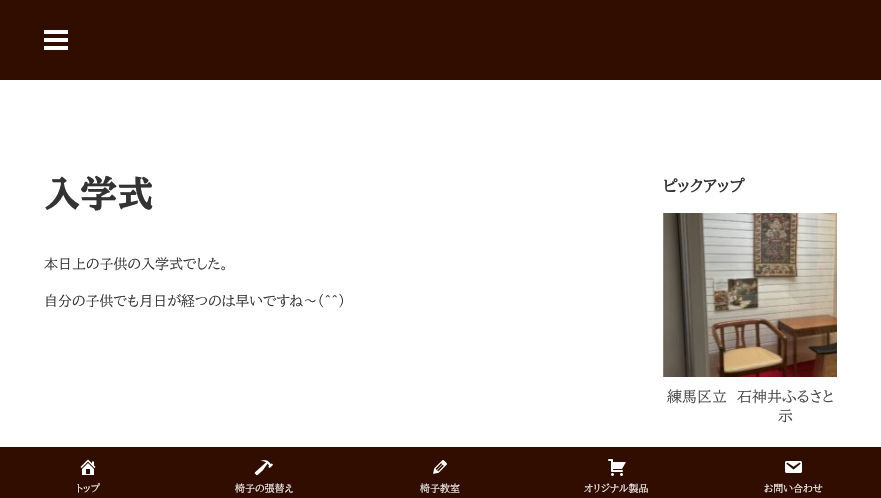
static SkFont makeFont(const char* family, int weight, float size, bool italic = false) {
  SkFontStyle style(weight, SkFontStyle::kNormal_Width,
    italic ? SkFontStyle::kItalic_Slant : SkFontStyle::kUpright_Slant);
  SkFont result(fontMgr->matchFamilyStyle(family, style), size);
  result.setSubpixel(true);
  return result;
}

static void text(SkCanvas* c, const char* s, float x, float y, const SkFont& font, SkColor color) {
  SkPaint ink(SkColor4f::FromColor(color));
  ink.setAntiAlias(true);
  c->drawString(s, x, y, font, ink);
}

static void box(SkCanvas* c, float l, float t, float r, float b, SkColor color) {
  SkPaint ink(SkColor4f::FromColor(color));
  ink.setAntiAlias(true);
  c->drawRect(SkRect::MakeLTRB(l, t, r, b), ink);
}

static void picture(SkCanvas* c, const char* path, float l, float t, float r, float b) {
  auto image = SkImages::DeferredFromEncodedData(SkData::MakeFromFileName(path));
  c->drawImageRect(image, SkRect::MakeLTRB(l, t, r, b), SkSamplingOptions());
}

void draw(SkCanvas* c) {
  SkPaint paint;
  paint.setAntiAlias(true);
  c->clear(0xffffffff);
  box(c, 0, 0, 881, 80, 0xff310d00);
  box(c, 44, 30, 68, 34, 0xffffffff);
  box(c, 44, 38, 68, 42, 0xffffffff);
  box(c, 44, 46, 68, 50, 0xffffffff);
  SkFont face1 = makeFont("BIZ UDPMincho", 700, 36.5f);
  text(c, "入学式", 44, 207, face1, 0xff333333);
  SkFont face2 = makeFont("BIZ UDPMincho", 400, 14);
  text(c, "本日上の子供の入学式でした。", 44, 269, face2, 0xff333333);
  text(c, "自分の子供でも月日が経つのは早いですね～（＾＾）", 44, 306, face2, 0xff333333);
  SkFont face3 = makeFont("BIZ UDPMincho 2", 700, 16);
  text(c, "ピックアップ", 663, 192, face3, 0xff333333);
  picture(c, "img_01.png", 663, 213, 837, 377);
  SkFont face4 = makeFont("BIZ UDPMincho", 400, 15);
  text(c, "練馬区立　石神井ふるさと", 667, 402, face4, 0xff474747);
  text(c, "示", 778, 421, face4, 0xff474747);
  box(c, 0, 447, 881, 498, 0xff310d00);
  picture(c, "img_02.png", 80, 459, 96, 475);
  SkFont face5 = makeFont("BIZ UDPMincho", 400, 10);
  text(c, "トップ", 76, 492, face5, 0xffffffff);
  picture(c, "img_03.png", 254, 460, 273, 476);
  text(c, "椅子の張替え", 235, 492, face5, 0xffffffff);
  picture(c, "img_04.png", 433, 460, 447, 474);
  text(c, "椅子教室", 420, 492, face5, 0xffffffff);
  picture(c, "img_05.png", 608, 459, 626, 476);
  text(c, "オリジナル製品", 584, 492, face5, 0xffffffff);
  picture(c, "img_06.png", 785, 461, 802, 473);
  text(c, "お問い合わせ", 764, 492, face5, 0xffffffff);
}
